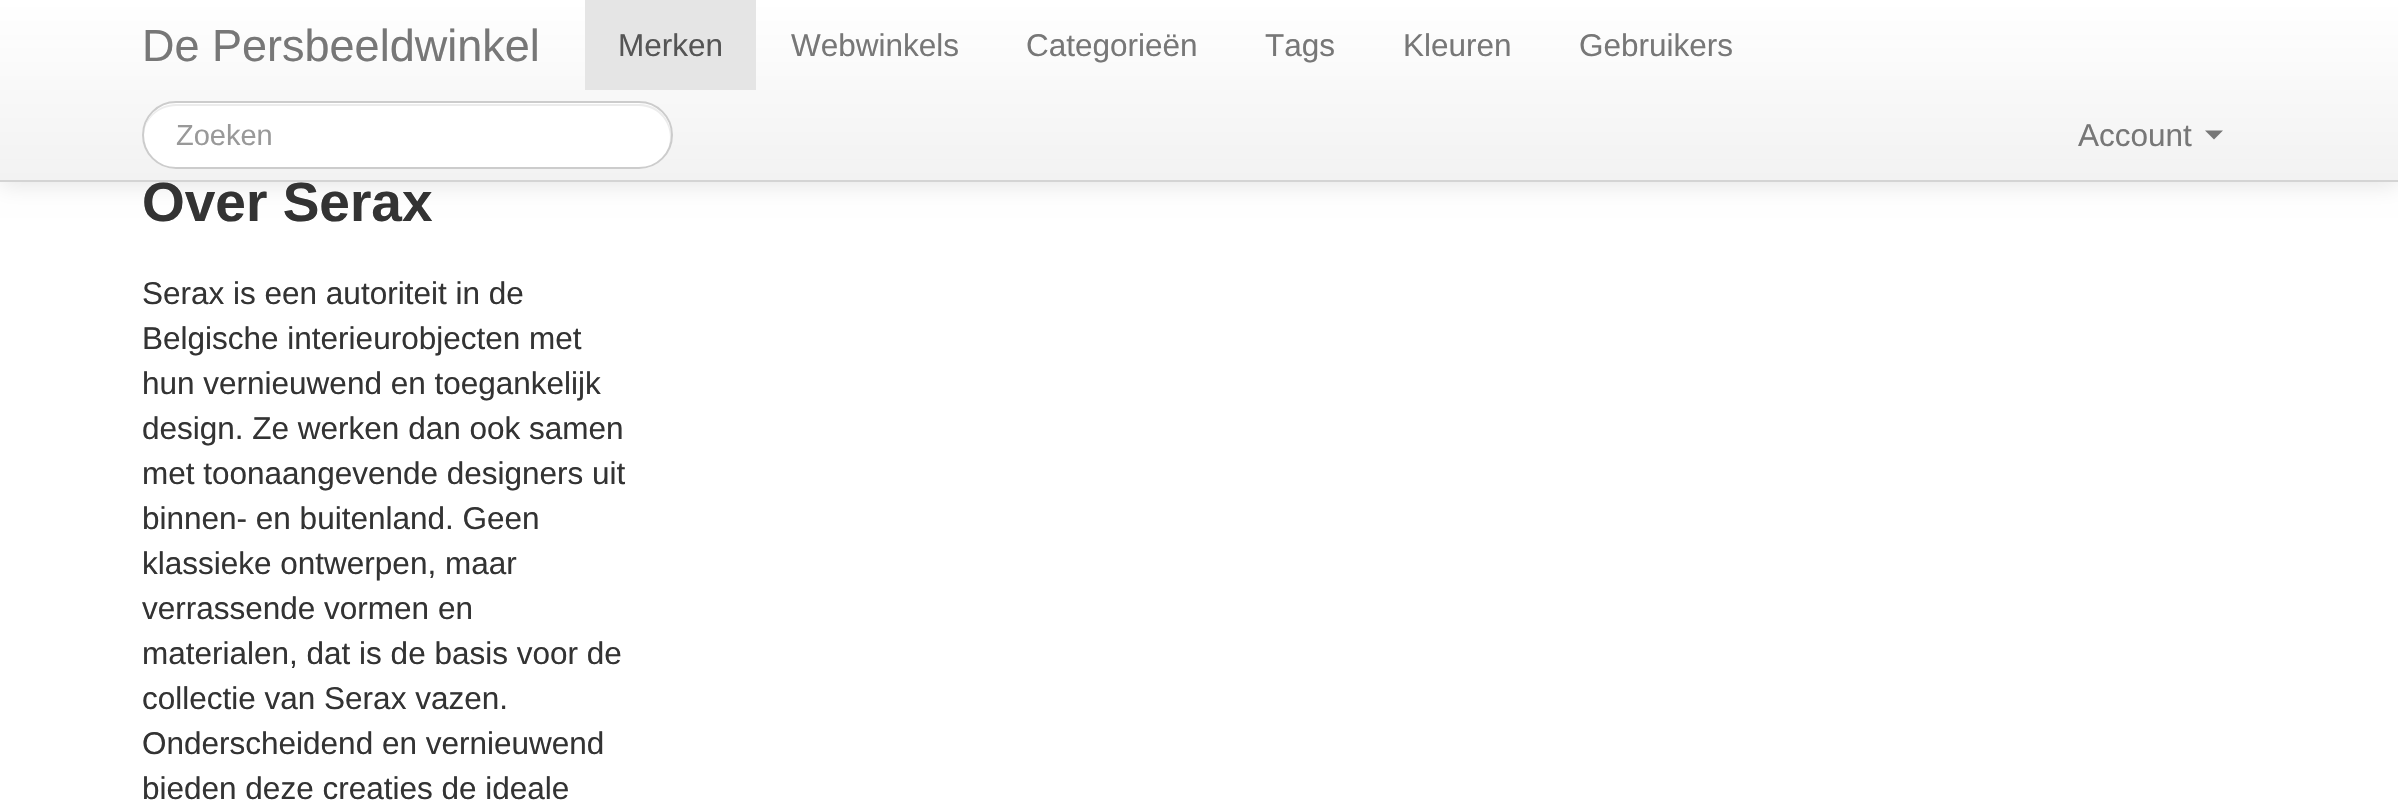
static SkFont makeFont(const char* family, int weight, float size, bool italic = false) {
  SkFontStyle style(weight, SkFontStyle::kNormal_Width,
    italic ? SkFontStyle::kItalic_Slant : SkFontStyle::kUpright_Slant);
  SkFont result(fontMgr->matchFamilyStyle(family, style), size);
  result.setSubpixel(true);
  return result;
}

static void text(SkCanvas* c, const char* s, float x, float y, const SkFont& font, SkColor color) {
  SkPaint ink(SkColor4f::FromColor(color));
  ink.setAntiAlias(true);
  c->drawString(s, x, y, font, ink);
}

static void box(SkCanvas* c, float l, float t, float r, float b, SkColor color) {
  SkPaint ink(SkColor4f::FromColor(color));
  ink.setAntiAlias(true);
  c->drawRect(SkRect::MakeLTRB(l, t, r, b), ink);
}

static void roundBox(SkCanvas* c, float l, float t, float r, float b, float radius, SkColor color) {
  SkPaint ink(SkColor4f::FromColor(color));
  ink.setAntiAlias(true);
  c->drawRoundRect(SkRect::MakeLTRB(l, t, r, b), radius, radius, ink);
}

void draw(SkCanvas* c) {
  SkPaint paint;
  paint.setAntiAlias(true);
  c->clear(0xffffffff);
  paint.setColor(0x1a000000);
  paint.setMaskFilter(SkMaskFilter::MakeBlur(kNormal_SkBlurStyle, 11));
  c->drawRect(SkRect::MakeLTRB(0, 2, 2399, 185), paint);
  paint.setMaskFilter(nullptr);
  {
    const SkColor colors[] = {0xffffffff, 0xfff2f2f2};
    const float stops[] = {0, 1};
    const SkPoint ends[] = {{1199, 0}, {1199, 180}};
    paint.setShader(SkGradientShader::MakeLinear(ends, colors, stops, 2, SkTileMode::kClamp));
    paint.setAlpha(255);
  }
  c->drawRect(SkRect::MakeLTRB(0, 0, 2398, 180), paint);
  box(c, 0, 180, 2398, 182, 0xffd4d4d4);
  SkFont face1 = makeFont("Liberation Sans", 400, 45);
  text(c, "De Persbeeldwinkel", 142, 61, face1, 0xff777777);
  box(c, 585, 0, 756, 90, 0xffe5e5e5);
  SkFont face2 = makeFont("Liberation Sans", 400, 31.5f);
  text(c, "Merken", 618, 56, face2, 0xff555555);
  text(c, "Webwinkels", 791, 56, face2, 0xff777777);
  text(c, "Categorieën", 1026, 56, face2, 0xff777777);
  text(c, "Tags", 1265, 56, face2, 0xff777777);
  text(c, "Kleuren", 1403, 56, face2, 0xff777777);
  text(c, "Gebruikers", 1579, 56, face2, 0xff777777);
  roundBox(c, 142, 101, 673, 169, 34, 0xffffffff);
  paint.setShader(nullptr);
  paint.setColor(0xffececec);
  c->drawPath(SkPathBuilder().moveTo(176, 106).lineTo(639, 106).cubicTo(656, 106, 670, 120, 670, 137).cubicTo(670, 142, 669, 147, 667, 151).cubicTo(670, 146, 671, 141, 671, 136).cubicTo(671, 118, 657, 104, 640, 104).lineTo(176, 104).cubicTo(158, 104, 144, 118, 144, 136).cubicTo(144, 120, 158, 106, 176, 106).close().detach(), paint);
  paint.setStyle(SkPaint::kStroke_Style);
  paint.setStrokeWidth(2);
  paint.setColor(0xffcccccc);
  c->drawRoundRect(SkRect::MakeLTRB(143, 102, 672, 168), 33, 33, paint);
  SkFont face3 = makeFont("Liberation Sans", 400, 29);
  text(c, "Zoeken", 176, 145, face3, 0xff999999);
  text(c, "Account", 2078, 146, face2, 0xff777777);
  paint.setStyle(SkPaint::kFill_Style);
  paint.setColor(0xff777777);
  c->drawPath(SkPathBuilder().moveTo(2205, 130.5f).lineTo(2223, 130.5f).lineTo(2214, 139.5f).close().detach(), paint);
  SkFont face4 = makeFont("Liberation Sans", 700, 55);
  text(c, "Over Serax", 142, 221, face4, 0xff333333);
  text(c, "Serax is een autoriteit in de", 142, 304, face2, 0xff333333);
  text(c, "Belgische interieurobjecten met", 142, 349, face2, 0xff333333);
  text(c, "hun vernieuwend en toegankelijk", 142, 394, face2, 0xff333333);
  text(c, "design. Ze werken dan ook samen", 142, 439, face2, 0xff333333);
  text(c, "met toonaangevende designers uit", 142, 484, face2, 0xff333333);
  text(c, "binnen- en buitenland. Geen", 142, 529, face2, 0xff333333);
  text(c, "klassieke ontwerpen, maar", 142, 574, face2, 0xff333333);
  text(c, "verrassende vormen en", 142, 619, face2, 0xff333333);
  text(c, "materialen, dat is de basis voor de", 142, 664, face2, 0xff333333);
  text(c, "collectie van Serax vazen.", 142, 709, face2, 0xff333333);
  text(c, "Onderscheidend en vernieuwend", 142, 754, face2, 0xff333333);
  text(c, "bieden deze creaties de ideale", 142, 799, face2, 0xff333333);
}
